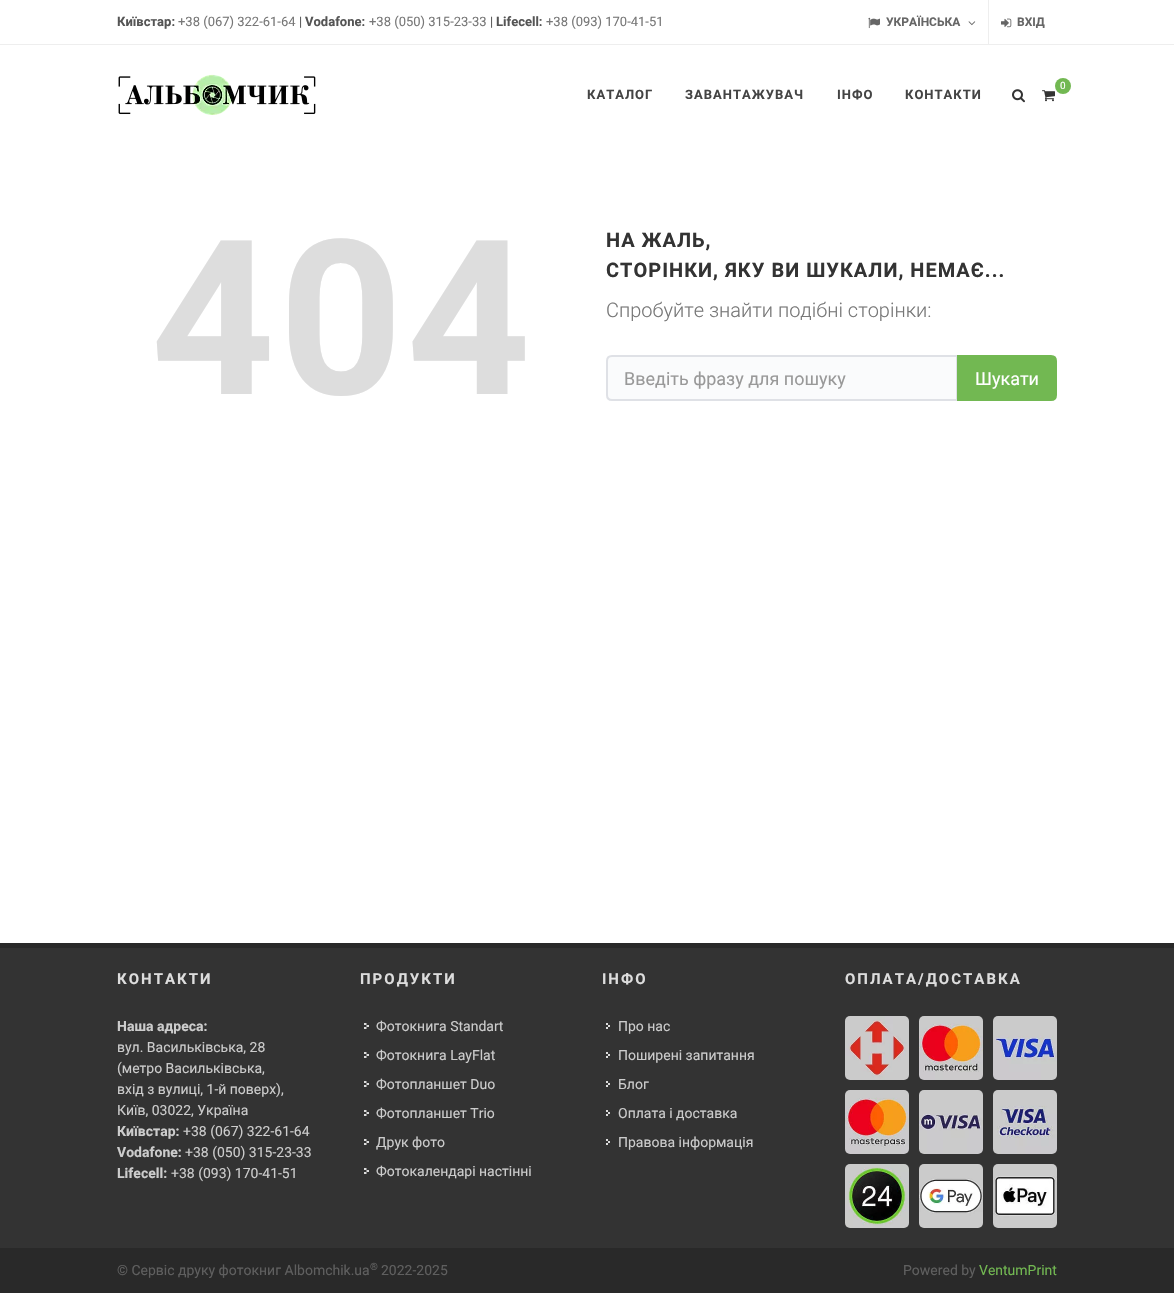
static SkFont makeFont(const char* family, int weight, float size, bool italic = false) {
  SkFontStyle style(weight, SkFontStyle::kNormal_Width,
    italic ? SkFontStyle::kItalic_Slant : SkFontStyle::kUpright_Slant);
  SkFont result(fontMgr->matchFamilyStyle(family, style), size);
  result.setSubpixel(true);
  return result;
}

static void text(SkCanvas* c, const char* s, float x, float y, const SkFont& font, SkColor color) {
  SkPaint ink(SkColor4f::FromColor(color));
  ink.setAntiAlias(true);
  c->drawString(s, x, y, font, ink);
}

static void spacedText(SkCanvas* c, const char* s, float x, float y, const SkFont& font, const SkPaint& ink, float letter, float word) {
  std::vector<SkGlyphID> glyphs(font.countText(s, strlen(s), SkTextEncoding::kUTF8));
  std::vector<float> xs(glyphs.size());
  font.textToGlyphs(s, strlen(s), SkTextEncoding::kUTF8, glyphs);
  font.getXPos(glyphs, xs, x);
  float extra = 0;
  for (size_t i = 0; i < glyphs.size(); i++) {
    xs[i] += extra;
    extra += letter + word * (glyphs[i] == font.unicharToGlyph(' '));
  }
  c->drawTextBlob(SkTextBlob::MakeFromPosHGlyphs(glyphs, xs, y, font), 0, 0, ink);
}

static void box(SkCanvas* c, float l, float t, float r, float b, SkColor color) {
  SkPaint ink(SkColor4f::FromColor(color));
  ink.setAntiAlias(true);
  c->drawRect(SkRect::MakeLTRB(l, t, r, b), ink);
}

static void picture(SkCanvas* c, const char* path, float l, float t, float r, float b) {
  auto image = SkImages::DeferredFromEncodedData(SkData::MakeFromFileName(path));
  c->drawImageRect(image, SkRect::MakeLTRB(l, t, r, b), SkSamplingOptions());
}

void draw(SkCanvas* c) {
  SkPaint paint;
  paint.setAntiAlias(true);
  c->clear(0xffffffff);
  box(c, 0, 44, 1174, 45, 0xffeeeeee);
  SkFont face1 = makeFont("Roboto", 700, 13);
  text(c, "Київстар:", 117, 26, face1, 0xff555555);
  SkFont face2 = makeFont("Roboto", 400, 13);
  text(c, "+38 (067) 322-61-64", 178, 26, face2, 0xff777777);
  text(c, "|", 299, 26, face2, 0xff555555);
  text(c, "Vodafone:", 305, 26, face1, 0xff555555);
  text(c, "+38 (050) 315-23-33", 369, 26, face2, 0xff777777);
  text(c, "|", 490, 26, face2, 0xff555555);
  text(c, "Lifecell:", 496, 26, face1, 0xff555555);
  text(c, "+38 (093) 170-41-51", 546, 26, face2, 0xff777777);
  picture(c, "img_01.png", 868, 17, 880, 29);
  SkFont face3 = makeFont("Roboto", 700, 12);
  text(c, "УКРАЇНСЬКА", 886, 26, face3, 0xff666666);
  picture(c, "img_02.png", 968, 21, 976, 26);
  box(c, 988, 0, 989, 44, 0xffeeeeee);
  picture(c, "img_03.png", 1001, 18, 1012, 28);
  text(c, "ВХІД", 1017, 26, face3, 0xff666666);
  picture(c, "img_04.png", 118, 74, 316, 115);
  paint.setColor(0xff72b852);
  c->drawCircle(1063, 86, 8, paint);
  SkFont face4 = makeFont("Roboto", 400, 10);
  text(c, "0", 1060, 89, face4, 0xffffffff);
  picture(c, "img_05.png", 1042, 90, 1055, 102);
  paint.setColor(0xff444444);
  spacedText(c, "КАТАЛОГ", 587, 99, face1, paint, 1, 0);
  spacedText(c, "ЗАВАНТАЖУВАЧ", 685, 99, face1, paint, 1, 0);
  spacedText(c, "ІНФО", 837, 99, face1, paint, 1, 0);
  spacedText(c, "КОНТАКТИ", 905, 99, face1, paint, 1, 0);
  picture(c, "img_06.png", 1012, 89, 1025, 103);
  SkFont face5 = makeFont("Roboto", 700, 216);
  paint.setColor(0xffdddddd);
  spacedText(c, "404", 151, 394, face5, paint, 4, 0);
  SkFont face6 = makeFont("Roboto", 700, 20);
  paint.setColor(0xff333333);
  spacedText(c, "НА ЖАЛЬ,", 606, 247, face6, paint, 1, 0);
  spacedText(c, "СТОРІНКИ, ЯКУ ВИ ШУКАЛИ, НЕМАЄ...", 606, 277, face6, paint, 1, 0);
  SkFont face7 = makeFont("Roboto", 300, 20);
  text(c, "Спробуйте знайти подібні сторінки:", 606, 317, face7, 0xff777777);
  paint.setColor(0xfffafbfc);
  c->drawPath(SkPathBuilder().moveTo(612, 356).lineTo(957, 356).lineTo(957, 400).lineTo(612, 400).cubicTo(609, 400, 607, 398, 607, 395).lineTo(607, 361).cubicTo(607, 358, 609, 356, 612, 356).close().detach(), paint);
  paint.setStyle(SkPaint::kStroke_Style);
  paint.setStrokeWidth(2);
  paint.setColor(0xffdfe1e6);
  c->drawPath(SkPathBuilder().moveTo(612, 356).lineTo(957, 356).lineTo(957, 400).lineTo(612, 400).cubicTo(609, 400, 607, 398, 607, 395).lineTo(607, 361).cubicTo(607, 358, 609, 356, 612, 356).close().detach(), paint);
  SkFont face8 = makeFont("Roboto", 400, 18);
  text(c, "Введіть фразу для пошуку", 624, 385, face8, 0xff999999);
  paint.setStyle(SkPaint::kFill_Style);
  paint.setColor(0xff72b852);
  c->drawPath(SkPathBuilder().moveTo(958, 356).lineTo(1051, 356).cubicTo(1054, 356, 1056, 358, 1056, 361).lineTo(1056, 395).cubicTo(1056, 398, 1054, 400, 1051, 400).lineTo(958, 400).close().detach(), paint);
  paint.setStyle(SkPaint::kStroke_Style);
  c->drawPath(SkPathBuilder().moveTo(958, 356).lineTo(1051, 356).cubicTo(1054, 356, 1056, 358, 1056, 361).lineTo(1056, 395).cubicTo(1056, 398, 1054, 400, 1051, 400).lineTo(958, 400).close().detach(), paint);
  text(c, "Шукати", 975, 385, face8, 0xffffffff);
  box(c, 0, 948, 1174, 1248, 0xff333333);
  box(c, 0, 943, 1174, 948, 0xff292929);
  SkFont face9 = makeFont("Roboto", 700, 15);
  paint.setStyle(SkPaint::kFill_Style);
  paint.setColor(0xffdddddd);
  spacedText(c, "КОНТАКТИ", 117, 984, face9, paint, 2, 0);
  SkFont face10 = makeFont("Roboto", 700, 14);
  text(c, "Наша адреса:", 117, 1031, face10, 0xffcccccc);
  SkFont face11 = makeFont("Roboto", 400, 14);
  text(c, "вул. Васильківська, 28", 117, 1052, face11, 0xffcccccc);
  text(c, "(метро Василькiвська,", 117, 1073, face11, 0xffcccccc);
  text(c, "вхід з вулиці, 1-й поверх),", 117, 1094, face11, 0xffcccccc);
  text(c, "Київ, 03022, Україна", 117, 1115, face11, 0xffcccccc);
  text(c, "Київстар:", 117, 1136, face10, 0xffcccccc);
  text(c, "+38 (067) 322-61-64", 183, 1136, face11, 0xffcccccc);
  text(c, "Vodafone:", 117, 1157, face10, 0xffcccccc);
  text(c, "+38 (050) 315-23-33", 185, 1157, face11, 0xffcccccc);
  text(c, "Lifecell:", 117, 1178, face10, 0xffcccccc);
  text(c, "+38 (093) 170-41-51", 171, 1178, face11, 0xffcccccc);
  spacedText(c, "ПРОДУКТИ", 360, 984, face9, paint, 2, 0);
  picture(c, "img_07.png", 364, 1023, 369, 1029);
  text(c, "Фотокнига Standart", 376, 1031, face11, 0xffcccccc);
  picture(c, "img_07.png", 364, 1052, 369, 1058);
  text(c, "Фотокнига LayFlat", 376, 1060, face11, 0xffcccccc);
  picture(c, "img_07.png", 364, 1081, 369, 1087);
  text(c, "Фотопланшет Duo", 376, 1089, face11, 0xffcccccc);
  picture(c, "img_07.png", 364, 1110, 369, 1116);
  text(c, "Фотопланшет Trio", 376, 1118, face11, 0xffcccccc);
  picture(c, "img_07.png", 364, 1139, 369, 1145);
  text(c, "Друк фото", 376, 1147, face11, 0xffcccccc);
  picture(c, "img_07.png", 364, 1168, 369, 1174);
  text(c, "Фотокалендарі настінні", 376, 1176, face11, 0xffcccccc);
  spacedText(c, "ІНФО", 602, 984, face9, paint, 2, 0);
  picture(c, "img_08.png", 606, 1023, 610, 1029);
  text(c, "Про нас", 618, 1031, face11, 0xffcccccc);
  picture(c, "img_08.png", 606, 1052, 610, 1058);
  text(c, "Поширені запитання", 618, 1060, face11, 0xffcccccc);
  picture(c, "img_08.png", 606, 1081, 610, 1087);
  text(c, "Блог", 618, 1089, face11, 0xffcccccc);
  picture(c, "img_08.png", 606, 1110, 610, 1116);
  text(c, "Оплата і доставка", 618, 1118, face11, 0xffcccccc);
  picture(c, "img_08.png", 606, 1139, 610, 1145);
  text(c, "Правова інформація", 618, 1147, face11, 0xffcccccc);
  spacedText(c, "ОПЛАТА/ДОСТАВКА", 845, 984, face9, paint, 2, 0);
  picture(c, "img_09.png", 845, 1016, 909, 1080);
  picture(c, "img_10.png", 919, 1016, 983, 1080);
  picture(c, "img_11.png", 993, 1016, 1057, 1080);
  picture(c, "img_12.png", 845, 1090, 909, 1154);
  picture(c, "img_13.png", 919, 1090, 983, 1154);
  picture(c, "img_14.png", 993, 1090, 1057, 1154);
  picture(c, "img_15.png", 845, 1164, 909, 1228);
  picture(c, "img_16.png", 919, 1164, 983, 1228);
  picture(c, "img_17.png", 993, 1164, 1057, 1228);
  box(c, 0, 1248, 1174, 1293, 0xff292929);
  text(c, "© Сервіс друку фотокниг Albomchik.ua", 117, 1275, face11, 0xff5f5f5f);
  text(c, "®", 370, 1270, face4, 0xff5f5f5f);
  text(c, "2022-2025", 381, 1275, face11, 0xff5f5f5f);
  text(c, "Powered by", 903, 1275, face11, 0xff5f5f5f);
  text(c, "VentumPrint", 979, 1275, face11, 0xff72b852);
}
